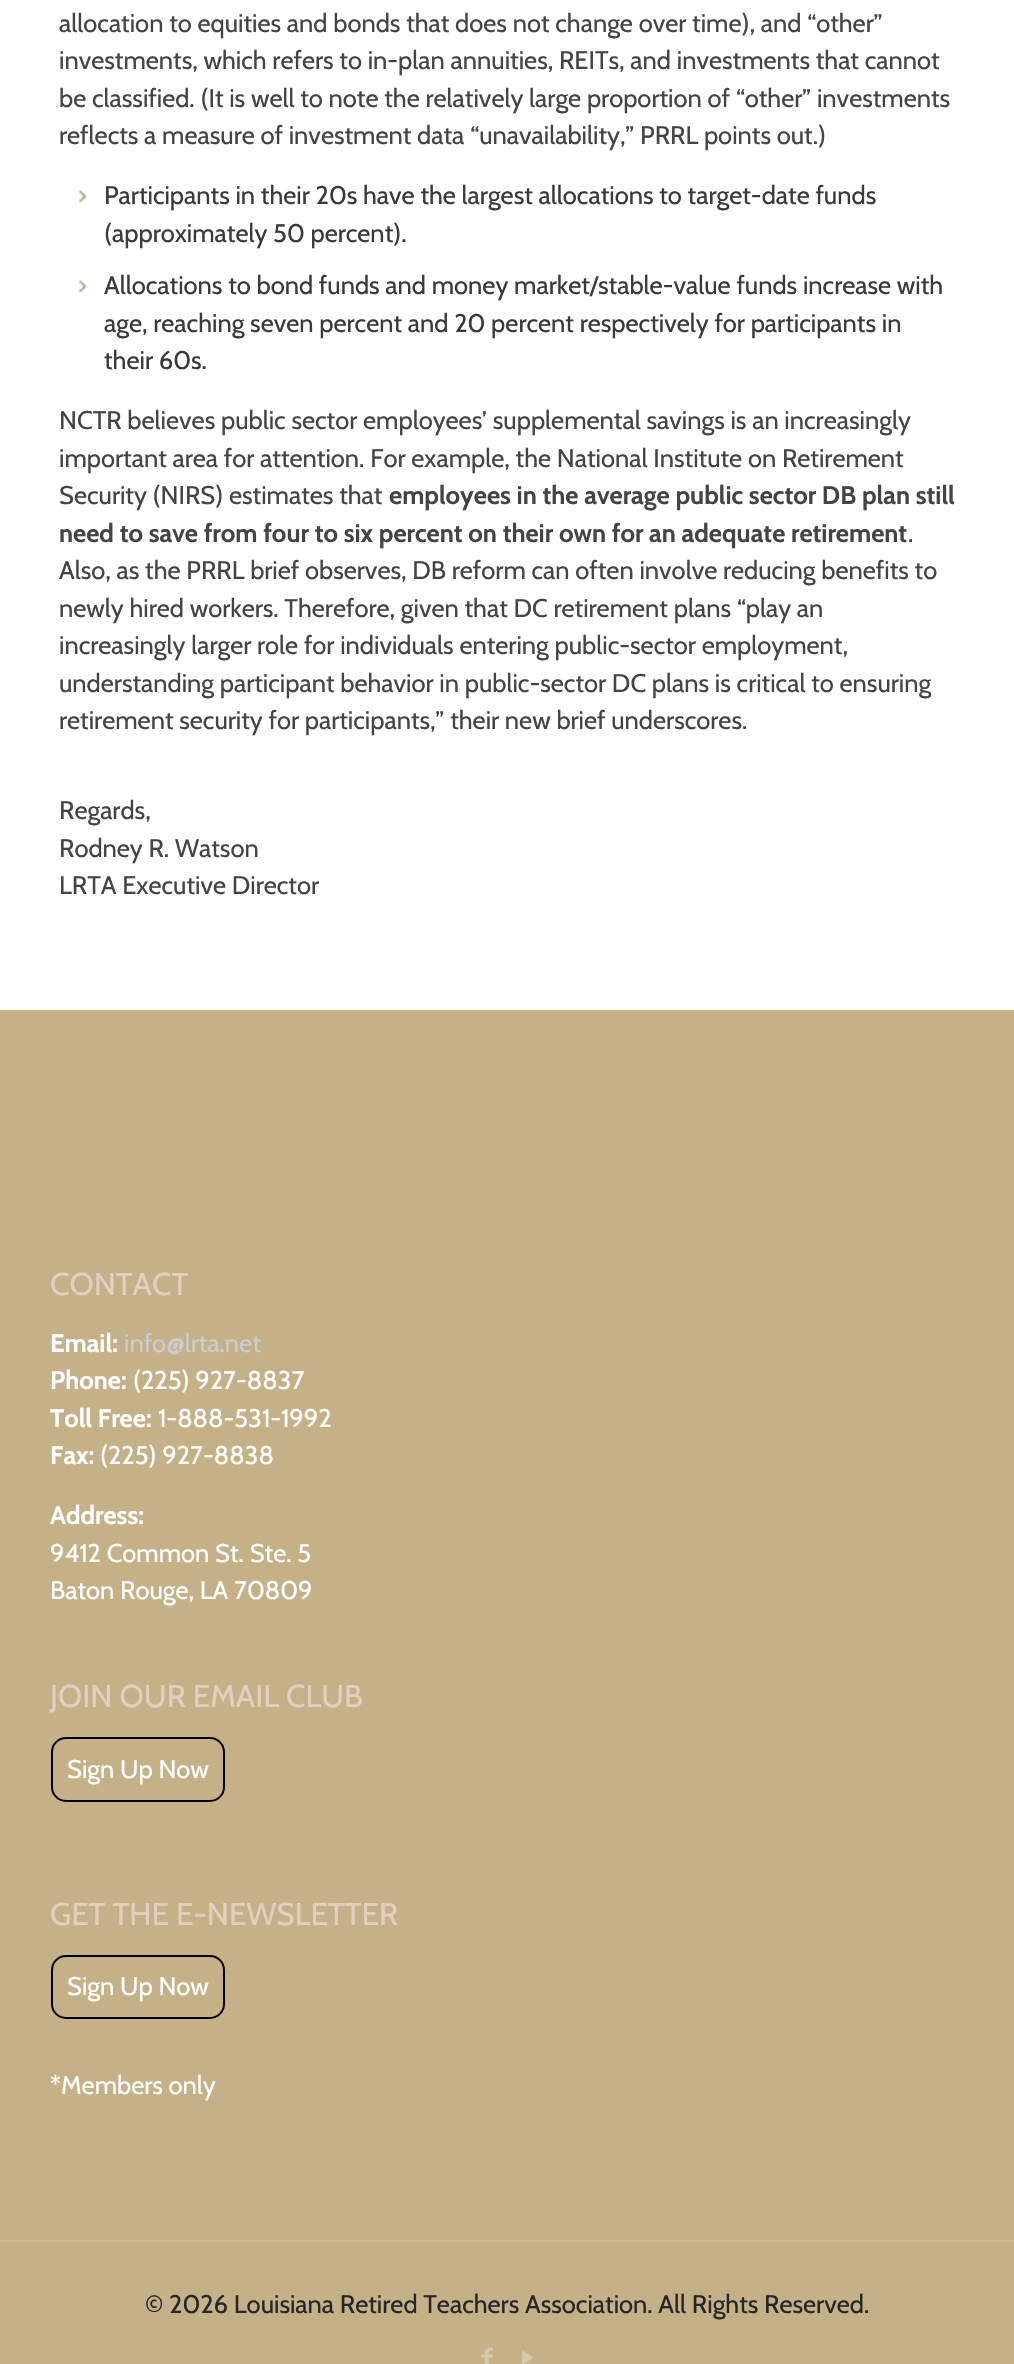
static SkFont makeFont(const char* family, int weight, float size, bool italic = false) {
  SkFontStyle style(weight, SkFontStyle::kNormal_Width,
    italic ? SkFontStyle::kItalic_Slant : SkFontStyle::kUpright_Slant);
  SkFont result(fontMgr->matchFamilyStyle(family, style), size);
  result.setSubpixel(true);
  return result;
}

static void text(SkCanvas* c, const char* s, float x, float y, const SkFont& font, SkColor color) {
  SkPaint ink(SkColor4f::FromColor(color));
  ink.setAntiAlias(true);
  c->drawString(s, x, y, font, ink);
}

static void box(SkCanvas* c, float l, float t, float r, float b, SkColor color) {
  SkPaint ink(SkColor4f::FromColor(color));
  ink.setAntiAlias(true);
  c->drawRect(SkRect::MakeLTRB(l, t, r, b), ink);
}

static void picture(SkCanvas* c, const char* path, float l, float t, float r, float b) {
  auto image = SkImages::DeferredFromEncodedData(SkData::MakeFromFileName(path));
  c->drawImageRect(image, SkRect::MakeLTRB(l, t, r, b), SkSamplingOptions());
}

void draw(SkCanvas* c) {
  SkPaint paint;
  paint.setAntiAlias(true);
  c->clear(0xffffffff);
  SkFont face1 = makeFont("Cabin", 400, 25.5f);
  text(c, "allocation to equities and bonds that does not change over time), and “other”", 59, 32, face1, 0xff444444);
  text(c, "investments, which refers to in-plan annuities, REITs, and investments that cannot", 59, 69, face1, 0xff444444);
  text(c, "be classified. (It is well to note the relatively large proportion of “other” investments", 59, 107, face1, 0xff444444);
  text(c, "reflects a measure of investment data “unavailability,” PRRL points out.)", 59, 144, face1, 0xff444444);
  picture(c, "img_01.png", 78, 190, 88, 203);
  text(c, "Participants in their 20s have the largest allocations to target-date funds", 104, 204, face1, 0xff3a3a3a);
  text(c, "(approximately 50 percent).", 104, 242, face1, 0xff3a3a3a);
  picture(c, "img_01.png", 78, 280, 88, 293);
  text(c, "Allocations to bond funds and money market/stable-value funds increase with", 104, 294, face1, 0xff3a3a3a);
  text(c, "age, reaching seven percent and 20 percent respectively for participants in", 104, 332, face1, 0xff3a3a3a);
  text(c, "their 60s.", 104, 369, face1, 0xff3a3a3a);
  text(c, "NCTR believes public sector employees’ supplemental savings is an increasingly", 59, 429, face1, 0xff444444);
  text(c, "important area for attention. For example, the National Institute on Retirement", 59, 467, face1, 0xff444444);
  text(c, "Security (NIRS) estimates that", 59, 504, face1, 0xff444444);
  SkFont face2 = makeFont("Cabin", 700, 25.5f);
  text(c, "employees in the average public sector DB plan still", 389, 504, face2, 0xff444444);
  text(c, "need to save from four to six percent on their own for an adequate retirement", 59, 542, face2, 0xff444444);
  text(c, ".", 908, 542, face1, 0xff444444);
  text(c, "Also, as the PRRL brief observes, DB reform can often involve reducing benefits to", 59, 579, face1, 0xff444444);
  text(c, "newly hired workers. Therefore, given that DC retirement plans “play an", 59, 617, face1, 0xff444444);
  text(c, "increasingly larger role for individuals entering public-sector employment,", 59, 654, face1, 0xff444444);
  text(c, "understanding participant behavior in public-sector DC plans is critical to ensuring", 59, 692, face1, 0xff444444);
  text(c, "retirement security for participants,” their new brief underscores.", 59, 729, face1, 0xff444444);
  text(c, "Regards,", 59, 819, face1, 0xff444444);
  text(c, "Rodney R. Watson", 59, 857, face1, 0xff444444);
  text(c, "LRTA Executive Director", 59, 894, face1, 0xff444444);
  box(c, 0, 1010, 1014, 2364, 0xffc4b187);
  SkFont face3 = makeFont("Cabin", 400, 31.5f);
  text(c, "CONTACT", 50, 1295, face3, 0xffe2cfc0);
  text(c, "Email:", 50, 1352, face2, 0xffffffff);
  text(c, "info@lrta.net", 124, 1352, face1, 0xffcdcdcd);
  text(c, "Phone:", 50, 1389, face2, 0xffffffff);
  text(c, "(225) 927-8837", 133, 1389, face1, 0xffffffff);
  text(c, "Toll Free:", 50, 1427, face2, 0xffffffff);
  text(c, "1-888-531-1992", 158, 1427, face1, 0xffffffff);
  text(c, "Fax:", 50, 1464, face2, 0xffffffff);
  text(c, "(225) 927-8838", 100, 1464, face1, 0xffffffff);
  text(c, "Address:", 50, 1524, face2, 0xffffffff);
  text(c, "9412 Common St. Ste. 5", 50, 1562, face1, 0xffffffff);
  text(c, "Baton Rouge, LA 70809", 50, 1599, face1, 0xffffffff);
  text(c, "JOIN OUR EMAIL CLUB", 50, 1707, face3, 0xffe2cfc0);
  paint.setStyle(SkPaint::kStroke_Style);
  paint.setStrokeWidth(2);
  paint.setColor(0xff000000);
  c->drawRoundRect(SkRect::MakeLTRB(52, 1738, 224, 1801), 14, 14, paint);
  text(c, "Sign Up Now", 67, 1778, face1, 0xffffffff);
  text(c, "GET THE E-NEWSLETTER", 50, 1925, face3, 0xffe2cfc0);
  c->drawRoundRect(SkRect::MakeLTRB(52, 1956, 224, 2018), 14, 14, paint);
  text(c, "Sign Up Now", 67, 1995, face1, 0xffffffff);
  text(c, "*Members only", 50, 2094, face1, 0xffffffff);
  box(c, 0, 2240, 1014, 2242, 0xffcab993);
  text(c, "© 2026 Louisiana Retired Teachers Association. All Rights Reserved.", 145, 2313, face1, 0xff262626);
  picture(c, "img_02.png", 481, 2347, 493, 2364);
  picture(c, "img_03.png", 522, 2351, 534, 2364);
}
